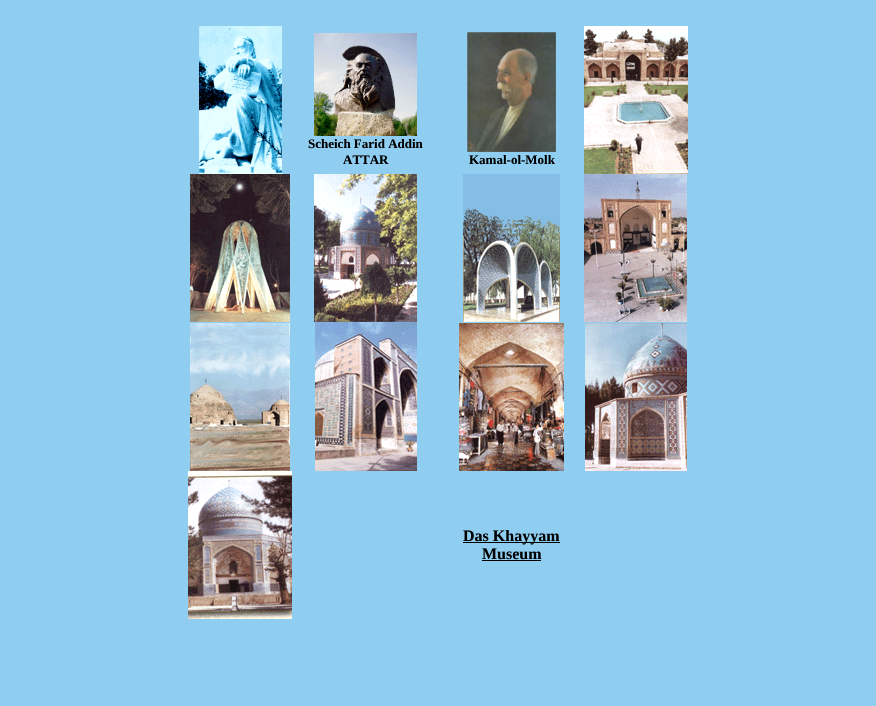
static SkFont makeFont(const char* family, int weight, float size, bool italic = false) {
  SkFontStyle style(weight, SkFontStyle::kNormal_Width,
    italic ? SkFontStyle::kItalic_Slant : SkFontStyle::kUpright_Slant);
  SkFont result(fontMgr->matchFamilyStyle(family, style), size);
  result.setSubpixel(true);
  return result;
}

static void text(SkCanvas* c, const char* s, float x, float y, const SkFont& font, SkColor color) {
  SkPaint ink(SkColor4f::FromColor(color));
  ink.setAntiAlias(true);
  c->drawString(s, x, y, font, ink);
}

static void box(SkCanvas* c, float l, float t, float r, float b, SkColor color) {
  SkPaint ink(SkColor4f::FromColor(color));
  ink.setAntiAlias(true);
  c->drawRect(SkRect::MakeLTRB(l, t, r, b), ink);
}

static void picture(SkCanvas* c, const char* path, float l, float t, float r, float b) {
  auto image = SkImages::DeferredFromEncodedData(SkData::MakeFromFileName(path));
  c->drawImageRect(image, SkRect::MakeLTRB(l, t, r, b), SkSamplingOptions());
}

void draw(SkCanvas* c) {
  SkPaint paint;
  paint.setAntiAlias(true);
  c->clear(0xff8fcef1);
  picture(c, "img_01.png", 199, 26, 282, 174);
  picture(c, "img_02.png", 314, 33, 417, 136);
  SkFont face1 = makeFont("Liberation Serif", 700, 13);
  text(c, "Scheich Farid Addin", 308, 148, face1, 0xff000000);
  text(c, "ATTAR", 343, 164, face1, 0xff000000);
  picture(c, "img_03.png", 467, 32, 556, 152);
  text(c, "Kamal-ol-Molk", 469, 164, face1, 0xff000000);
  picture(c, "img_04.png", 584, 26, 688, 174);
  picture(c, "img_05.png", 190, 174, 290, 322);
  picture(c, "img_06.png", 314, 174, 417, 322);
  picture(c, "img_07.png", 463, 174, 560, 322);
  picture(c, "img_08.png", 584, 174, 687, 322);
  picture(c, "img_09.png", 190, 323, 290, 471);
  picture(c, "img_10.png", 315, 322, 417, 471);
  picture(c, "img_11.png", 459, 323, 564, 471);
  picture(c, "img_12.png", 585, 323, 687, 471);
  picture(c, "img_13.png", 188, 471, 292, 619);
  box(c, 463, 542, 560, 543, 0xff000000);
  SkFont face2 = makeFont("Liberation Serif", 700, 16);
  text(c, "Das Khayyam", 463, 541, face2, 0xff000000);
  text(c, "Museum", 482, 559, face2, 0xff000000);
  box(c, 482, 560, 541, 561, 0xff000000);
}
